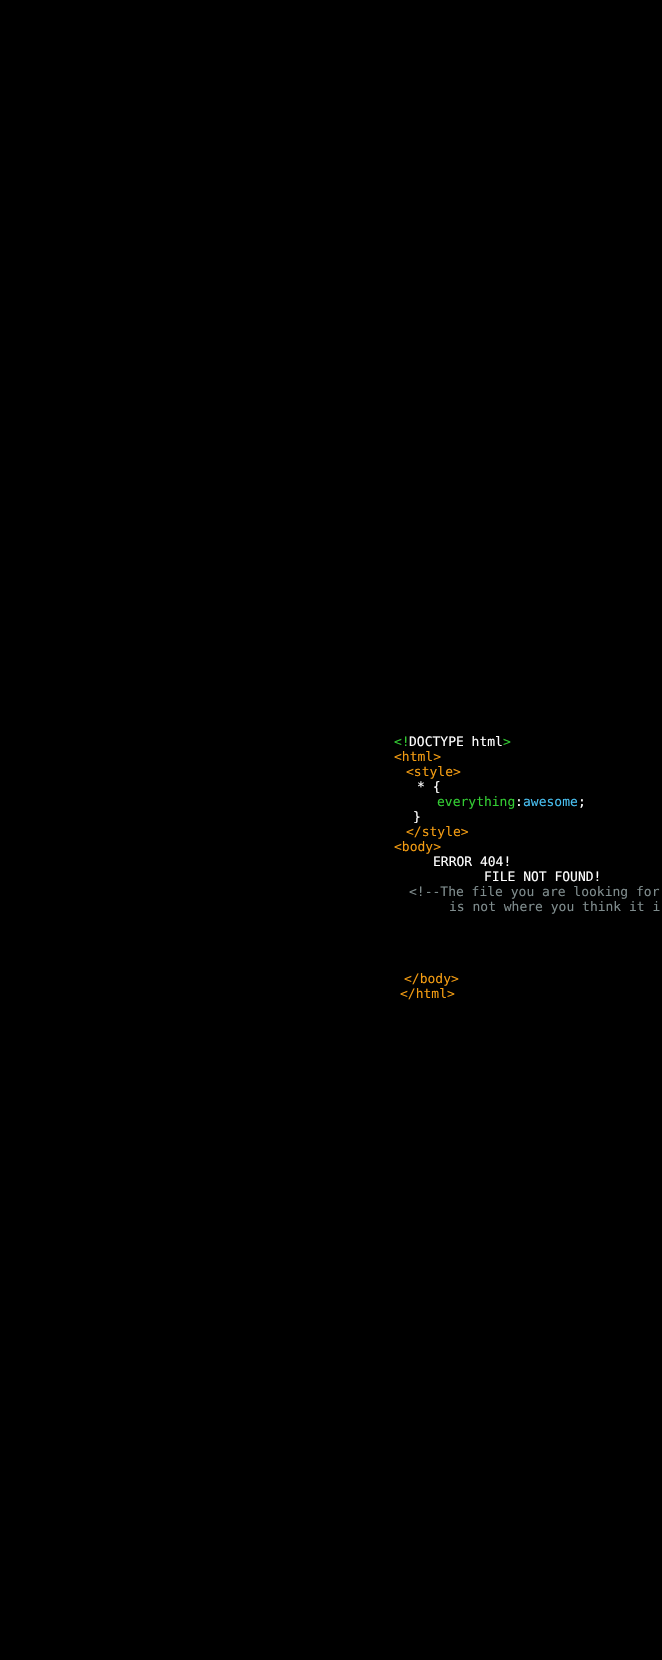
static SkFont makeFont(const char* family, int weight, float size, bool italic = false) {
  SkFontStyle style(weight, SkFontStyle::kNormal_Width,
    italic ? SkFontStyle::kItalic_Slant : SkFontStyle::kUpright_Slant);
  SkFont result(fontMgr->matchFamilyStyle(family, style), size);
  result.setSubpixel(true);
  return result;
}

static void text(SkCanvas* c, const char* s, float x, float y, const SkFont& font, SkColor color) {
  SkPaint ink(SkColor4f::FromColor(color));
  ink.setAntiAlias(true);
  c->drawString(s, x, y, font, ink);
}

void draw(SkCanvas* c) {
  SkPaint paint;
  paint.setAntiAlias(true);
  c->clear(0xff000000);
  SkFont face1 = makeFont("DejaVu Sans Mono", 400, 13);
  text(c, "<!", 394, 746, face1, 0xff33cc33);
  text(c, "DOCTYPE html", 409, 746, face1, 0xffffffff);
  text(c, ">", 503, 746, face1, 0xff33cc33);
  text(c, "<html>", 394, 761, face1, 0xfff39c12);
  text(c, "<style>", 406, 776, face1, 0xfff39c12);
  text(c, "* {", 417, 791, face1, 0xffffffff);
  text(c, "everything", 437, 806, face1, 0xff33cc33);
  text(c, ":", 515, 806, face1, 0xffffffff);
  text(c, "awesome", 523, 806, face1, 0xff48beef);
  text(c, ";", 578, 806, face1, 0xffffffff);
  text(c, "}", 413, 821, face1, 0xffffffff);
  text(c, "</style>", 406, 836, face1, 0xfff39c12);
  text(c, "<body>", 394, 851, face1, 0xfff39c12);
  text(c, "ERROR 404!", 433, 866, face1, 0xffffffff);
  text(c, "FILE NOT FOUND!", 484, 881, face1, 0xffffffff);
  text(c, "<!--The file you are looking for", 409, 896, face1, 0xff7f8c8d);
  text(c, "is not where you think it i", 449, 911, face1, 0xff7f8c8d);
  text(c, "</body>", 404, 983, face1, 0xfff39c12);
  text(c, "</html>", 400, 998, face1, 0xfff39c12);
}
